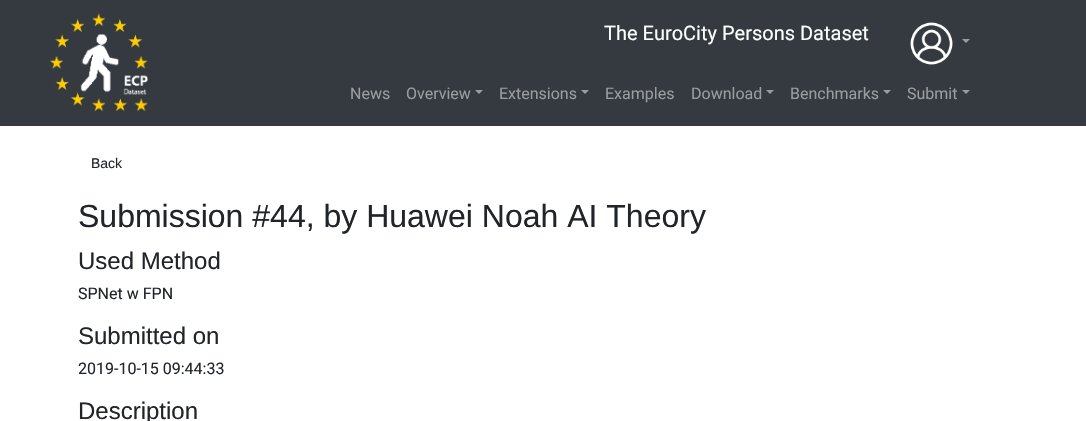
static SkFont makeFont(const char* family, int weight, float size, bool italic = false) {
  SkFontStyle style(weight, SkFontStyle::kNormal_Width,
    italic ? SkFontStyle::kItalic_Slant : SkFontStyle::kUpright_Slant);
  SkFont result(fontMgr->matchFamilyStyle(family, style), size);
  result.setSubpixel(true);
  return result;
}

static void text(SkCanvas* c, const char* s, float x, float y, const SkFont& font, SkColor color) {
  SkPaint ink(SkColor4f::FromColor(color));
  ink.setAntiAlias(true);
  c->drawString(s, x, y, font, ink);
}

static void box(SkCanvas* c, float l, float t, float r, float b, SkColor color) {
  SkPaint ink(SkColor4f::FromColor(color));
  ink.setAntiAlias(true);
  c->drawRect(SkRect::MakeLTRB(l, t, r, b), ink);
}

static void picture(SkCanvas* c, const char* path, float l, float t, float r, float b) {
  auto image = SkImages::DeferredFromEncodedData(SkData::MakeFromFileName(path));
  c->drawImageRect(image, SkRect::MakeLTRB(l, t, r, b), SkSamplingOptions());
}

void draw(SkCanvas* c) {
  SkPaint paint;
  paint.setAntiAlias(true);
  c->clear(0xffffffff);
  box(c, 0, 0, 1086, 126, 0xff343a40);
  picture(c, "img_01.png", 50, 13, 148, 112);
  SkFont face1 = makeFont("Roboto", 400, 20);
  text(c, "The EuroCity Persons Dataset", 604, 40, face1, 0xffffffff);
  picture(c, "img_02.png", 910, 22, 953, 65);
  paint.setColor(0xff9a9da0);
  c->drawPath(SkPathBuilder().moveTo(962, 39).lineTo(970, 39).lineTo(966, 43).close().detach(), paint);
  SkFont face2 = makeFont("Roboto", 400, 16);
  text(c, "News", 350, 99, face2, 0xff9a9da0);
  text(c, "Overview", 406, 99, face2, 0xff9a9da0);
  c->drawPath(SkPathBuilder().moveTo(475, 90).lineTo(483, 90).lineTo(479, 94).close().detach(), paint);
  text(c, "Extensions", 499, 99, face2, 0xff9a9da0);
  c->drawPath(SkPathBuilder().moveTo(581, 90).lineTo(589, 90).lineTo(585, 94).close().detach(), paint);
  text(c, "Examples", 605, 99, face2, 0xff9a9da0);
  text(c, "Download", 691, 99, face2, 0xff9a9da0);
  c->drawPath(SkPathBuilder().moveTo(766, 90).lineTo(774, 90).lineTo(770, 94).close().detach(), paint);
  text(c, "Benchmarks", 790, 99, face2, 0xff9a9da0);
  c->drawPath(SkPathBuilder().moveTo(883, 90).lineTo(891, 90).lineTo(887, 94).close().detach(), paint);
  text(c, "Submit", 907, 99, face2, 0xff9a9da0);
  c->drawPath(SkPathBuilder().moveTo(962, 90).lineTo(970, 90).lineTo(966, 94).close().detach(), paint);
  SkFont face3 = makeFont("Liberation Sans", 400, 14);
  text(c, "Back", 91, 168, face3, 0xff212529);
  SkFont face4 = makeFont("Liberation Sans", 400, 32);
  text(c, "Submission #44, by Huawei Noah AI Theory", 78, 227, face4, 0xff212529);
  SkFont face5 = makeFont("Liberation Sans", 400, 24);
  text(c, "Used Method", 78, 269, face5, 0xff212529);
  text(c, "SPNet w FPN", 78, 299, face2, 0xff212529);
  text(c, "Submitted on", 78, 344, face5, 0xff212529);
  text(c, "2019-10-15 09:44:33", 78, 374, face2, 0xff212529);
  text(c, "Description", 78, 419, face5, 0xff212529);
}
